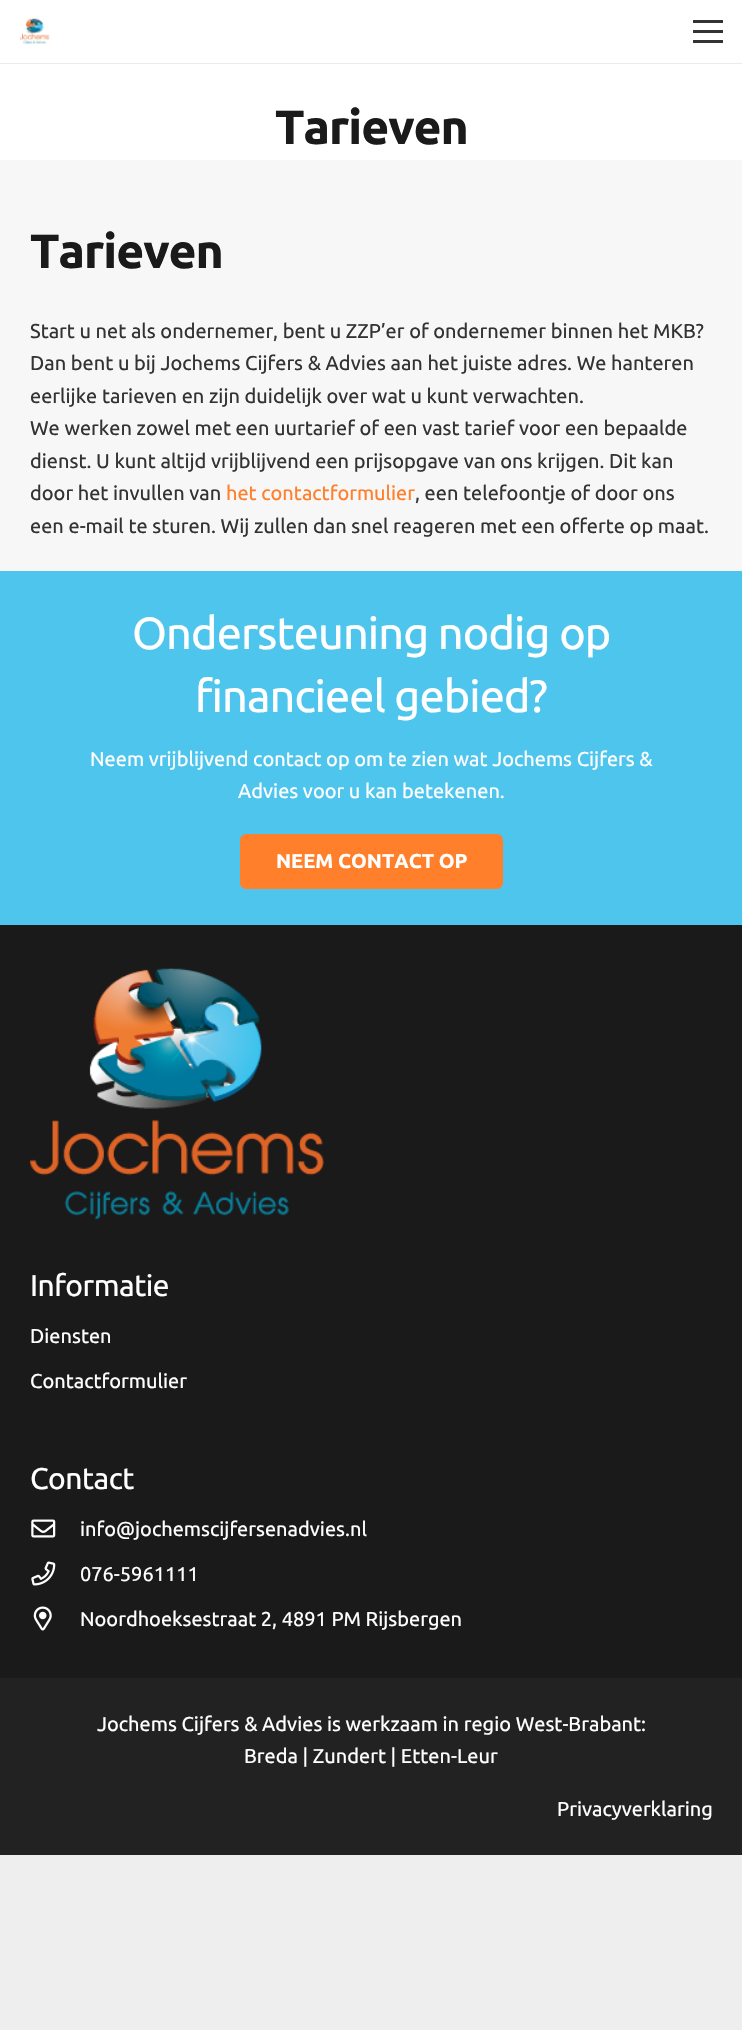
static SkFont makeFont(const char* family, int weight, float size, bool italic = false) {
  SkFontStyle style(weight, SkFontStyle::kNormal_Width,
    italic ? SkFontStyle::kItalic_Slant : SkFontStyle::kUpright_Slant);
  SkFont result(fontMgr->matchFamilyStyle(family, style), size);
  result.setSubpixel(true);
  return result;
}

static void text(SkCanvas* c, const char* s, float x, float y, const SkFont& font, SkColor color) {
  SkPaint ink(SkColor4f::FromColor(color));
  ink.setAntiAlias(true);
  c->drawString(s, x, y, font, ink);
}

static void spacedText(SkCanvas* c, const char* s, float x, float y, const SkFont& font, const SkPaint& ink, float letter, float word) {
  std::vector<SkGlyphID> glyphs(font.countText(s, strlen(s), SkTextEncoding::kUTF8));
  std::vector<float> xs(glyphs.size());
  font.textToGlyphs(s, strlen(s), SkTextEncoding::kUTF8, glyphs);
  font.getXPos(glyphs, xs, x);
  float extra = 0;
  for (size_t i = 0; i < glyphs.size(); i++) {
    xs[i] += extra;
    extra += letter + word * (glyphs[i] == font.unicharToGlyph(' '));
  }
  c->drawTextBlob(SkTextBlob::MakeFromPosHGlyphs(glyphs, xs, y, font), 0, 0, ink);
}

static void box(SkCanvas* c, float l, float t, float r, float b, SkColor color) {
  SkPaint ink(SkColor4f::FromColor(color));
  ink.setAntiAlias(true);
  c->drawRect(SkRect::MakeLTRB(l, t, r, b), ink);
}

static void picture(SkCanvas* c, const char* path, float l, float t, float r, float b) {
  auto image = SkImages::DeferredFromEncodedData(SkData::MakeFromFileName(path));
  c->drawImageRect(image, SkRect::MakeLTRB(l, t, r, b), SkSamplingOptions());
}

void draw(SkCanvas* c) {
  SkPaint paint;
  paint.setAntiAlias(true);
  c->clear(0xffeeeeee);
  box(c, 0, 64, 742, 160, 0xffffffff);
  paint.setColor(0xffebebeb);
  c->drawPath(SkPathBuilder().moveTo(0, 62).lineTo(0, 64).lineTo(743, 64).lineTo(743, 1).lineTo(742, 1).lineTo(742, 62).close().detach(), paint);
  box(c, 0, 0, 742, 63, 0xffffffff);
  picture(c, "img_01.png", 20, 18, 50, 44);
  box(c, 693, 30, 723, 33, 0xff333333);
  box(c, 693, 20, 723, 23, 0xff333333);
  box(c, 693, 40, 723, 43, 0xff333333);
  SkFont face1 = makeFont("Ubuntu", 700, 48);
  paint.setColor(0xff1a1a1a);
  spacedText(c, "Tarieven", 275, 144, face1, paint, -1, 0);
  box(c, 0, 160, 742, 571, 0xfff7f7f7);
  spacedText(c, "Tarieven", 30, 268, face1, paint, -1, 0);
  SkFont face2 = makeFont("Ubuntu", 400, 20);
  text(c, "Start u net als ondernemer, bent u ZZP’er of ondernemer binnen het MKB?", 30, 338, face2, 0xff333333);
  text(c, "Dan bent u bij Jochems Cijfers & Advies aan het juiste adres. We hanteren", 30, 370, face2, 0xff333333);
  text(c, "eerlijke tarieven en zijn duidelijk over wat u kunt verwachten.", 30, 403, face2, 0xff333333);
  text(c, "We werken zowel met een uurtarief of een vast tarief voor een bepaalde", 30, 435, face2, 0xff333333);
  text(c, "dienst. U kunt altijd vrijblijvend een prijsopgave van ons krijgen. Dit kan", 30, 468, face2, 0xff333333);
  text(c, "door het invullen van", 30, 500, face2, 0xff333333);
  text(c, "het contactformulier", 226, 500, face2, 0xffff7f2a);
  text(c, ", een telefoontje of door ons", 415, 500, face2, 0xff333333);
  text(c, "een e-mail te sturen. Wij zullen dan snel reageren met een offerte op maat.", 30, 533, face2, 0xff333333);
  box(c, 0, 571, 742, 925, 0xff4ec5ed);
  SkFont face3 = makeFont("Ubuntu", 400, 45);
  paint.setColor(0xffffffff);
  spacedText(c, "Ondersteuning nodig op", 132, 649, face3, paint, -0.9f, 0);
  spacedText(c, "financieel gebied?", 195, 712, face3, paint, -0.9f, 0);
  text(c, "Neem vrijblijvend contact op om te zien wat Jochems Cijfers &", 90, 766, face2, 0xffffffff);
  text(c, "Advies voor u kan betekenen.", 238, 798, face2, 0xffffffff);
  paint.setColor(0xffff7f2a);
  c->drawRoundRect(SkRect::MakeLTRB(241.5f, 835.5f, 501.5f, 887.5f), 4.5f, 4.5f, paint);
  paint.setStyle(SkPaint::kStroke_Style);
  paint.setStrokeWidth(3);
  c->drawRoundRect(SkRect::MakeLTRB(241.5f, 835.5f, 501.5f, 887.5f), 4.5f, 4.5f, paint);
  SkFont face4 = makeFont("Ubuntu", 700, 20);
  text(c, "NEEM CONTACT OP", 276, 868, face4, 0xffffffff);
  box(c, 0, 925, 742, 1678, 0xff1a1a1a);
  picture(c, "img_02.png", 30, 967, 324, 1220);
  SkFont face5 = makeFont("Ubuntu", 400, 30);
  paint.setStyle(SkPaint::kFill_Style);
  paint.setColor(0xffffffff);
  spacedText(c, "Informatie", 30, 1296, face5, paint, -0.5f, 0);
  text(c, "Diensten", 30, 1343, face2, 0xffffffff);
  text(c, "Contactformulier", 30, 1388, face2, 0xffffffff);
  spacedText(c, "Contact", 30, 1489, face5, paint, -0.5f, 0);
  picture(c, "img_03.png", 31, 1519, 56, 1538);
  text(c, "info@jochemscijfersenadvies.nl", 80, 1536, face2, 0xffffffff);
  picture(c, "img_04.png", 31, 1561, 56, 1586);
  text(c, "076-5961111", 80, 1581, face2, 0xffffffff);
  picture(c, "img_05.png", 33, 1606, 52, 1631);
  text(c, "Noordhoeksestraat 2, 4891 PM Rijsbergen", 80, 1626, face2, 0xffffffff);
  box(c, 0, 1678, 742, 1855, 0xff222222);
  text(c, "Jochems Cijfers & Advies is werkzaam in regio West-Brabant:", 97, 1731, face2, 0xffffffff);
  text(c, "Breda | Zundert | Etten-Leur", 244, 1763, face2, 0xffffffff);
  text(c, "Privacyverklaring", 557, 1816, face2, 0xffffffff);
}
